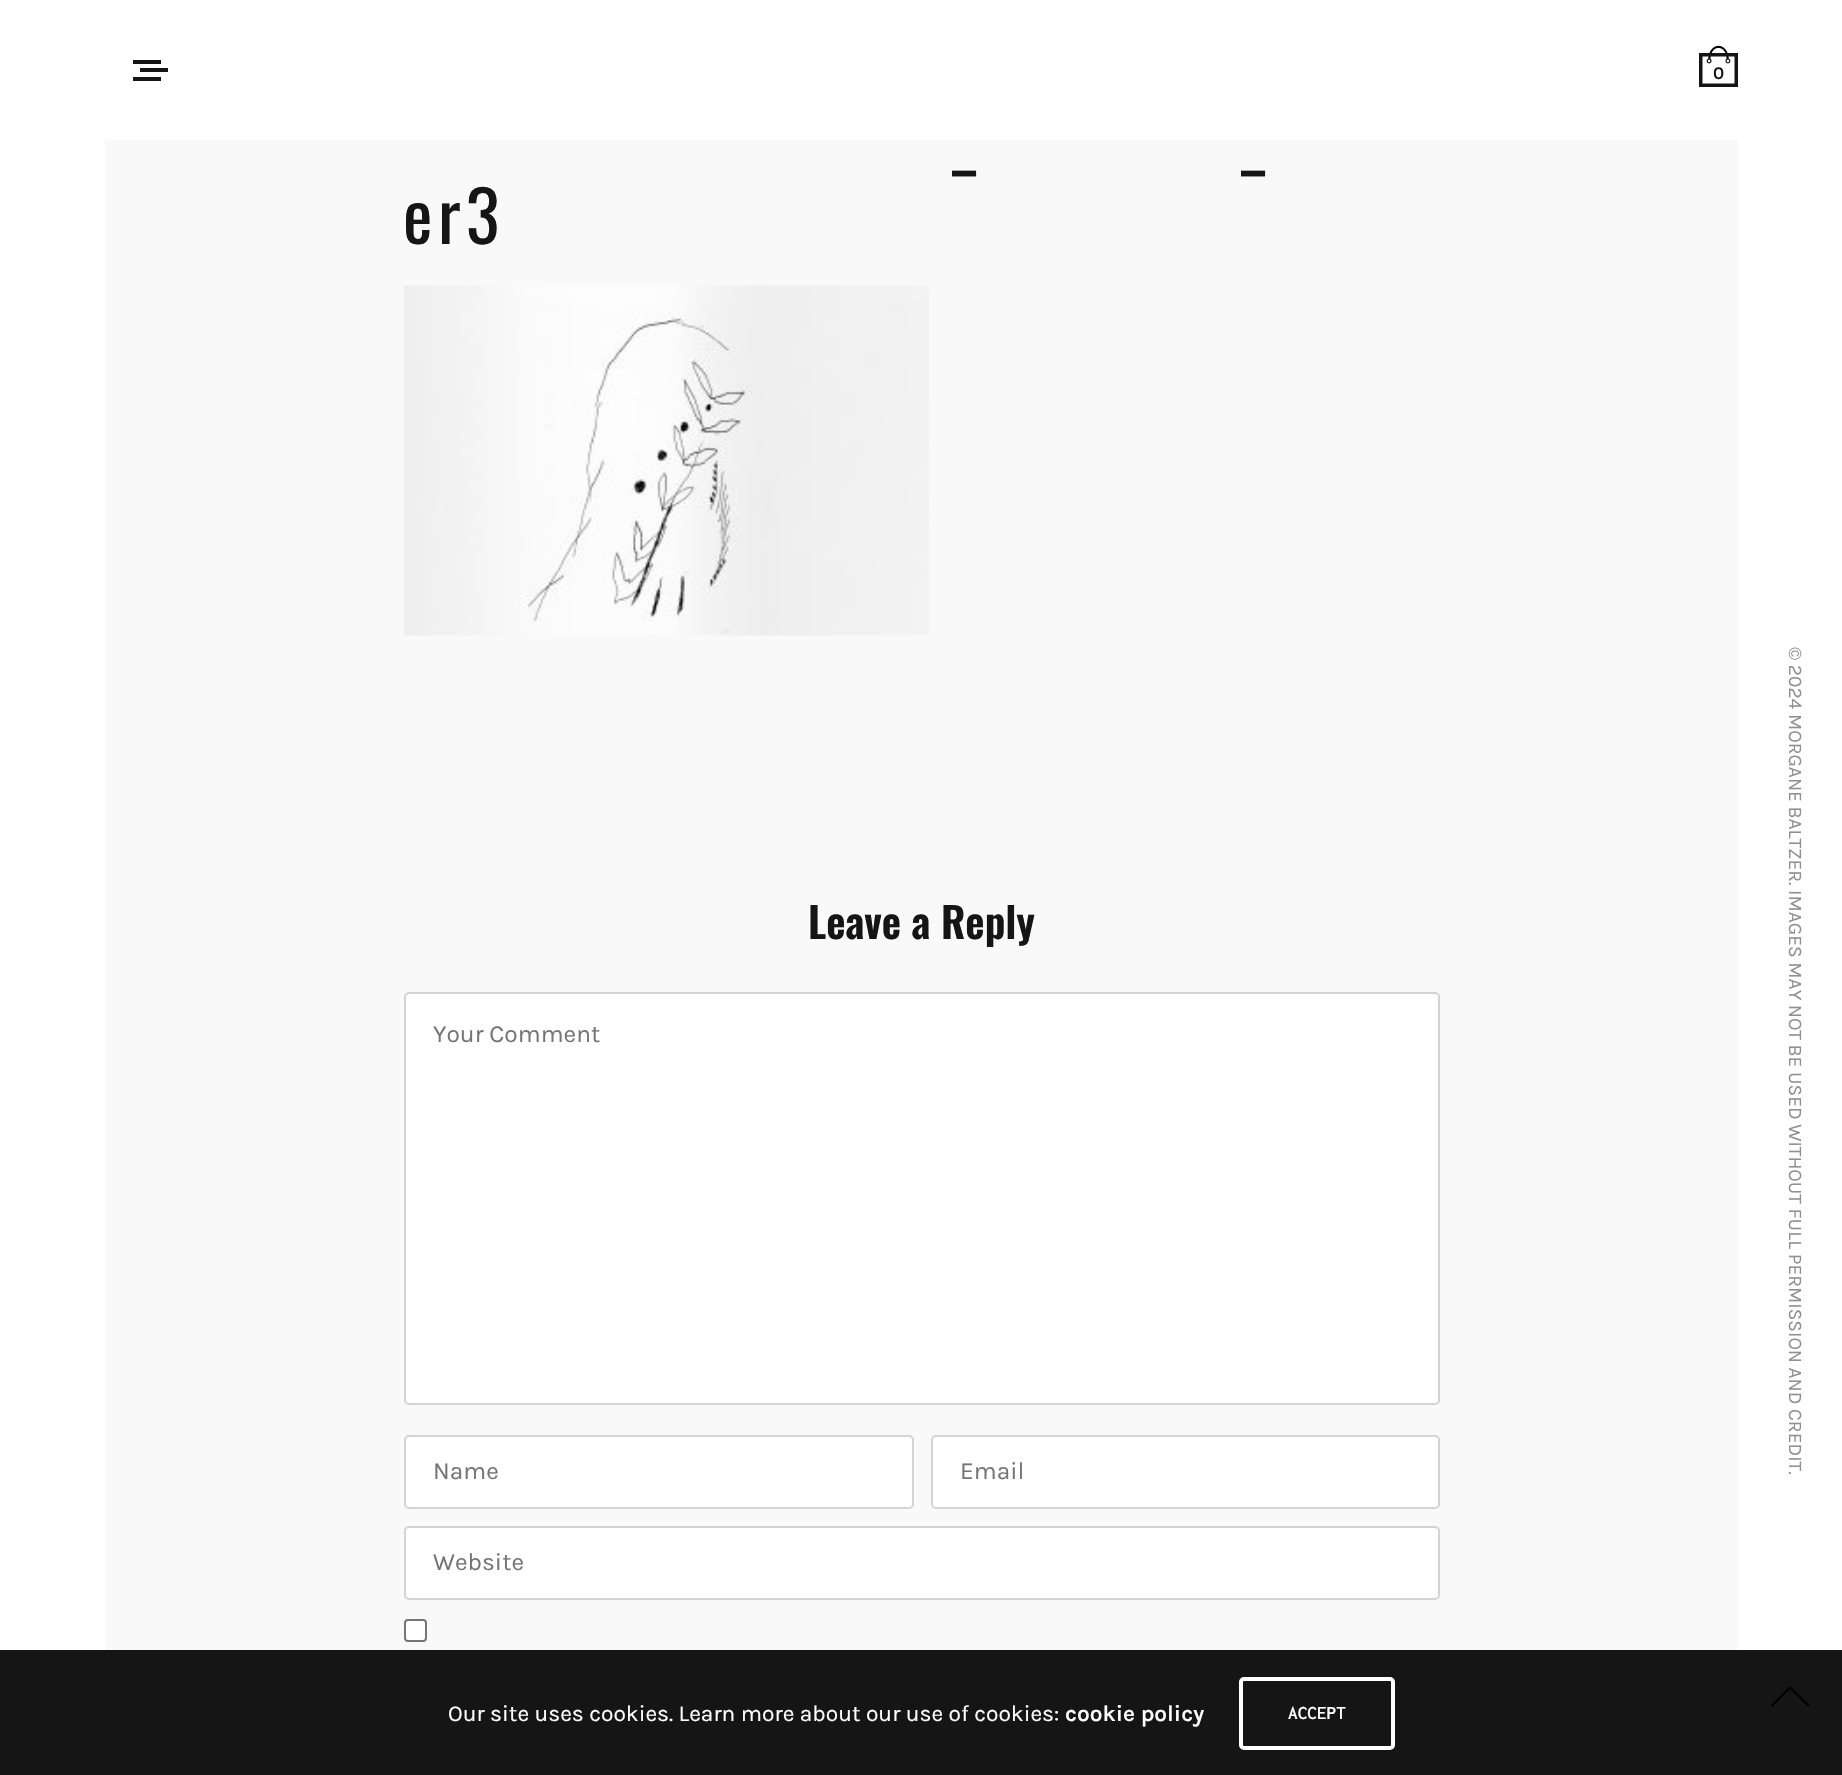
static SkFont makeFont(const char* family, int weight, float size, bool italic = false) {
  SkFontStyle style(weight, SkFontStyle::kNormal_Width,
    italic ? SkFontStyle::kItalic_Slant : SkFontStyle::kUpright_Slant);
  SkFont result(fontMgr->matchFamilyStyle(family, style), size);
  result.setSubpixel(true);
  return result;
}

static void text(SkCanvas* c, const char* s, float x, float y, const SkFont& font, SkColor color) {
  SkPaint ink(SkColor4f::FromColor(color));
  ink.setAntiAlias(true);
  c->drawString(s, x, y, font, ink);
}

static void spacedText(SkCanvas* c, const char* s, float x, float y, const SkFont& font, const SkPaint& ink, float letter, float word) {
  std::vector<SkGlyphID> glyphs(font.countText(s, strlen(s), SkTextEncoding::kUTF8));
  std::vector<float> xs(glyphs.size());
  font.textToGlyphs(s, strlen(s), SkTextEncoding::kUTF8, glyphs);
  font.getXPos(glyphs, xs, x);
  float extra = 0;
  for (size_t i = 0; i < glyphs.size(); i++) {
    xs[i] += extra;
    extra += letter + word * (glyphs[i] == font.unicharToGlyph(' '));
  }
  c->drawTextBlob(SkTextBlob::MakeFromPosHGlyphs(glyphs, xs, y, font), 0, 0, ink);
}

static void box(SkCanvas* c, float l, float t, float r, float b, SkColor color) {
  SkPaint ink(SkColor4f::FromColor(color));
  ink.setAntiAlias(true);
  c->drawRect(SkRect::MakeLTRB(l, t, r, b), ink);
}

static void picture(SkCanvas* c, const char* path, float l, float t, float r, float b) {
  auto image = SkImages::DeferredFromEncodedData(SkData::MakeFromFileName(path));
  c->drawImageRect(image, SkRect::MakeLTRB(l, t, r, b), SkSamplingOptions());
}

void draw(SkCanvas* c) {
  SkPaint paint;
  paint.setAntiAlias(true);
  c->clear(0xfff9f9f9);
  box(c, 0, 0, 1842, 140, 0xffffffff);
  box(c, 133, 60, 161, 64, 0xff151515);
  box(c, 140, 68, 168, 72, 0xff151515);
  box(c, 133, 77, 161, 81, 0xff151515);
  picture(c, "img_01.png", 1699, 45, 1738, 87);
  SkFont face1 = makeFont("Karla", 600, 18);
  text(c, "0", 1713, 79, face1, 0xff151515);
  box(c, 0, 140, 105, 1650, 0xffffffff);
  SkFont face2 = makeFont("Oswald", 400, 70);
  paint.setColor(0xff151515);
  spacedText(c, "_", 952, 167, face2, paint, 5.5f, 0);
  spacedText(c, "_", 1241, 167, face2, paint, 5.5f, 0);
  spacedText(c, "er3", 403, 244, face2, paint, 5.5f, 0);
  picture(c, "img_02.png", 404, 285, 929, 636);
  SkFont face3 = makeFont("Oswald", 600, 42);
  text(c, "Leave a Reply", 808, 939, face3, 0xff151515);
  paint.setColor(0xffffffff);
  c->drawRoundRect(SkRect::MakeLTRB(405, 993, 1439, 1404), 4, 4, paint);
  paint.setStyle(SkPaint::kStroke_Style);
  paint.setStrokeWidth(2);
  paint.setColor(0xffd4d4d4);
  c->drawRoundRect(SkRect::MakeLTRB(405, 993, 1439, 1404), 4, 4, paint);
  SkFont face4 = makeFont("Karla", 400, 24.5f);
  text(c, "Your Comment", 433, 1042, face4, 0xff757575);
  paint.setStyle(SkPaint::kFill_Style);
  paint.setColor(0xffffffff);
  c->drawRoundRect(SkRect::MakeLTRB(405, 1436, 913, 1508), 4, 4, paint);
  paint.setStyle(SkPaint::kStroke_Style);
  paint.setColor(0xffd4d4d4);
  c->drawRoundRect(SkRect::MakeLTRB(405, 1436, 913, 1508), 4, 4, paint);
  text(c, "Name", 433, 1479, face4, 0xff757575);
  paint.setStyle(SkPaint::kFill_Style);
  paint.setColor(0xffffffff);
  c->drawRoundRect(SkRect::MakeLTRB(932, 1436, 1439, 1508), 4, 4, paint);
  paint.setStyle(SkPaint::kStroke_Style);
  paint.setColor(0xffd4d4d4);
  c->drawRoundRect(SkRect::MakeLTRB(932, 1436, 1439, 1508), 4, 4, paint);
  text(c, "Email", 960, 1479, face4, 0xff757575);
  paint.setStyle(SkPaint::kFill_Style);
  paint.setColor(0xffffffff);
  c->drawRoundRect(SkRect::MakeLTRB(405, 1527, 1439, 1599), 4, 4, paint);
  paint.setStyle(SkPaint::kStroke_Style);
  paint.setColor(0xffd4d4d4);
  c->drawRoundRect(SkRect::MakeLTRB(405, 1527, 1439, 1599), 4, 4, paint);
  text(c, "Website", 433, 1570, face4, 0xff757575);
  paint.setStyle(SkPaint::kFill_Style);
  paint.setColor(0xffffffff);
  c->drawRoundRect(SkRect::MakeLTRB(405, 1620, 426, 1641), 3, 3, paint);
  paint.setStyle(SkPaint::kStroke_Style);
  paint.setColor(0xff767676);
  c->drawRoundRect(SkRect::MakeLTRB(405, 1620, 426, 1641), 3, 3, paint);
  box(c, 1738, 140, 1842, 1650, 0xffffffff);
  SkFont face5 = makeFont("Karla", 400, 19.25f);
  c->save();
  c->rotate(90, 1789, 647);
  text(c, "© 2024 MORGANE BALTZER. IMAGES MAY NOT BE USED WITHOUT FULL PERMISSION AND CREDIT.", 1789, 647, face5, 0xff909090);
  c->restore();
  box(c, 0, 1650, 1842, 1775, 0xff151515);
  paint.setStrokeWidth(2.2f);
  paint.setStrokeJoin(SkPaint::kBevel_Join);
  paint.setColor(0xff000000);
  c->drawPath(SkPathBuilder().moveTo(1771.5f, 1706).lineTo(1790, 1687.5f).lineTo(1809, 1706).detach(), paint);
  SkFont face6 = makeFont("Karla", 400, 22.75f);
  text(c, "Our site uses cookies. Learn more about our use of cookies:", 448, 1721, face6, 0xffffffff);
  SkFont face7 = makeFont("Karla", 600, 22.75f);
  text(c, "cookie policy", 1065, 1721, face7, 0xffffffff);
  paint.setStrokeWidth(4);
  paint.setStrokeJoin(SkPaint::kMiter_Join);
  paint.setColor(0xffffffff);
  c->drawRoundRect(SkRect::MakeLTRB(1241, 1679, 1393, 1748), 3, 3, paint);
  SkFont face8 = makeFont("Inconsolata", 600, 19.25f);
  text(c, "ACCEPT", 1288, 1719, face8, 0xffffffff);
}
